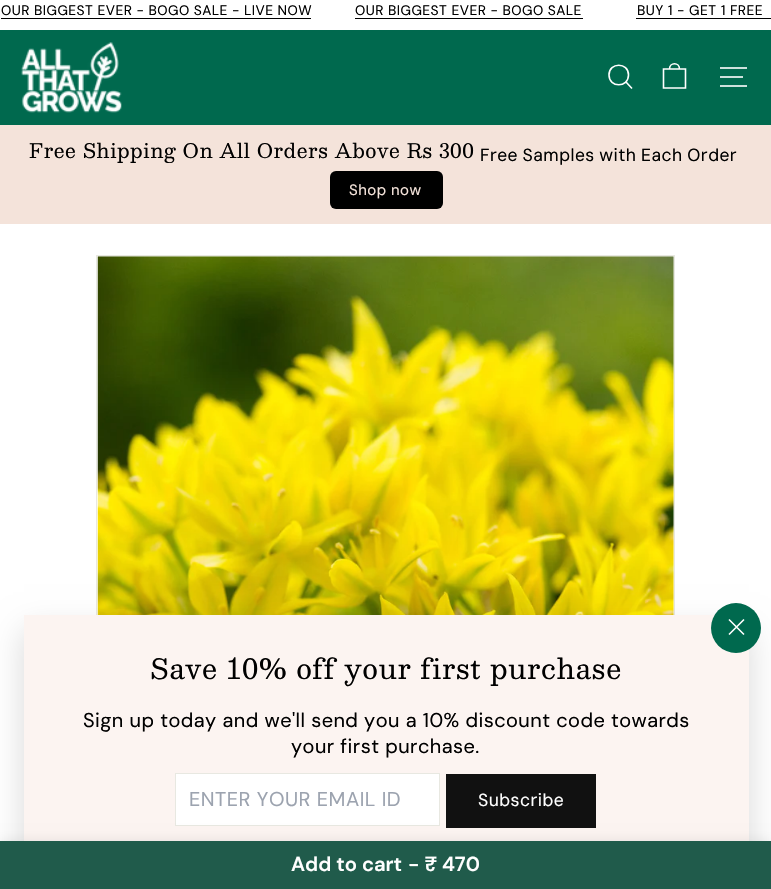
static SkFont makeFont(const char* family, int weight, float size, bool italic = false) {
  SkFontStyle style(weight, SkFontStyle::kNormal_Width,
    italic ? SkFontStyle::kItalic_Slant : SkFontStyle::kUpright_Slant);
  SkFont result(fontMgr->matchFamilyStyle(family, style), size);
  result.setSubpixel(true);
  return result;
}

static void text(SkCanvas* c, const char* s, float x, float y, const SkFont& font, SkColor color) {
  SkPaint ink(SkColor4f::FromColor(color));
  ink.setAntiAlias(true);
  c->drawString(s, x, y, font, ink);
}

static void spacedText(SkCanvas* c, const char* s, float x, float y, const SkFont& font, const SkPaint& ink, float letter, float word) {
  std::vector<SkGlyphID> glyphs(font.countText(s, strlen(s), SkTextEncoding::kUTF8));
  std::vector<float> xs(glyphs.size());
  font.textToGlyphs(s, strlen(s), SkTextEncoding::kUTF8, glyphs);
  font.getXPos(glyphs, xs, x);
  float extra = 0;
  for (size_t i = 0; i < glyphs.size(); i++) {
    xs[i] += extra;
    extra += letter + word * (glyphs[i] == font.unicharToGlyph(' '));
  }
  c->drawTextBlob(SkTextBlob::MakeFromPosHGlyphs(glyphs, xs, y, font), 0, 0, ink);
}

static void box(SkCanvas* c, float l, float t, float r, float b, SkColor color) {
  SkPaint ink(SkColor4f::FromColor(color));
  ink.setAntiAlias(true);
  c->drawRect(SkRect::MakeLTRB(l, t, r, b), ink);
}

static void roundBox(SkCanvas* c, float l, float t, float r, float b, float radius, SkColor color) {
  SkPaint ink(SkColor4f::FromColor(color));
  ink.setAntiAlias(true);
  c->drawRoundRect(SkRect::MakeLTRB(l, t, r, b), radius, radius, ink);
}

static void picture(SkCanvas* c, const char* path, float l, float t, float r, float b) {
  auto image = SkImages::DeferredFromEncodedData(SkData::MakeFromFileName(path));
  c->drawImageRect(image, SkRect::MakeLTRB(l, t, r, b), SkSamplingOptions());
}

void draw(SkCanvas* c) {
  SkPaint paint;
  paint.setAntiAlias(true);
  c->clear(0xffffffff);
  SkFont face1 = makeFont("DM Sans", 400, 13.75f);
  paint.setColor(0xff000000);
  spacedText(c, "OUR BIGGEST EVER - BOGO SALE - LIVE NOW", 1, 15, face1, paint, 0.45f, 0);
  box(c, 1, 18, 311, 19, 0xff000000);
  spacedText(c, "OUR BIGGEST EVER - BOGO SALE", 355, 15, face1, paint, 0.45f, 0);
  box(c, 355, 18, 583, 19, 0xff000000);
  spacedText(c, "BUY 1 - GET 1 FREE", 637, 15, face1, paint, 0.45f, 0);
  box(c, 636, 18, 771, 19, 0xff000000);
  box(c, 0, 30, 771, 125, 0xff00694e);
  picture(c, "img_01.png", 21, 42, 122, 113);
  paint.setStyle(SkPaint::kStroke_Style);
  paint.setStrokeWidth(1.6f);
  paint.setColor(0xffffffff);
  c->drawPath(SkPathBuilder().moveTo(628.5f, 75).cubicTo(628.5f, 88, 609, 88, 609, 75).cubicTo(609, 62, 628.5f, 62, 628.5f, 75).moveTo(632, 88.5f).lineTo(626, 82).detach(), paint);
  c->drawPath(SkPathBuilder().moveTo(669.5f, 69).cubicTo(669.5f, 62, 679.5f, 62, 679.5f, 69).moveTo(663.5f, 69).lineTo(685.5f, 69).lineTo(685.5f, 88).lineTo(663.5f, 88).close().detach(), paint);
  box(c, 720, 67, 747, 69, 0xffcce1dc);
  box(c, 720, 76, 743, 78, 0xffcce1dc);
  box(c, 720, 85, 747, 87, 0xffcce1dc);
  box(c, 0, 125, 771, 224, 0xfff4e3da);
  SkFont face2 = makeFont("Besley", 400, 19.7f);
  paint.setStyle(SkPaint::kFill_Style);
  paint.setColor(0xff000000);
  spacedText(c, "Free Shipping On All Orders Above Rs 300", 29, 158, face2, paint, 0.5f, 0);
  SkFont face3 = makeFont("DM Sans", 400, 17.5f);
  spacedText(c, "Free Samples with Each Order", 480, 161, face3, paint, 0.45f, -0.5f);
  roundBox(c, 330, 171, 443, 209, 6, 0xff000000);
  SkFont face4 = makeFont("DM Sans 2", 400, 15);
  paint.setColor(0xfff4e3da);
  spacedText(c, "Shop now", 349, 195, face4, paint, 0.45f, 0);
  paint.setStyle(SkPaint::kStroke_Style);
  paint.setStrokeWidth(1);
  paint.setColor(0xffe8e8e1);
  c->drawRect(SkRect::MakeLTRB(96.5f, 255.5f, 674.5f, 833.5f), paint);
  picture(c, "img_02.png", 97, 256, 674, 615);
  paint.setStyle(SkPaint::kFill_Style);
  paint.setColor(0x26000000);
  paint.setMaskFilter(SkMaskFilter::MakeBlur(kNormal_SkBlurStyle, 15.5f));
  c->drawRect(SkRect::MakeLTRB(24, 630, 749, 880), paint);
  paint.setMaskFilter(nullptr);
  box(c, 24, 615, 749, 841, 0xfffcf4f1);
  paint.setColor(0xff00694e);
  c->drawCircle(736, 628, 25, paint);
  paint.setStyle(SkPaint::kStroke_Style);
  paint.setStrokeWidth(1.6f);
  paint.setColor(0xffffffff);
  c->drawPath(SkPathBuilder().moveTo(729, 619.5f).lineTo(744, 634.5f).moveTo(744, 619.5f).lineTo(729, 634.5f).detach(), paint);
  SkFont face5 = makeFont("Besley", 400, 27.6f);
  paint.setStyle(SkPaint::kFill_Style);
  paint.setColor(0xff000000);
  spacedText(c, "Save 10% off your first purchase", 150, 679, face5, paint, 0.7f, 0);
  SkFont face6 = makeFont("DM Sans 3", 400, 20);
  spacedText(c, "Sign up today and we'll send you a 10% discount code towards", 83, 727, face6, paint, 0.45f, 0);
  spacedText(c, "your first purchase.", 291, 753, face6, paint, 0.45f, 0);
  paint.setColor(0xffffffff);
  c->drawRect(SkRect::MakeLTRB(175.5f, 773.5f, 439.5f, 825.5f), paint);
  paint.setStyle(SkPaint::kStroke_Style);
  paint.setStrokeWidth(1);
  paint.setColor(0xffe8e8e1);
  c->drawRect(SkRect::MakeLTRB(175.5f, 773.5f, 439.5f, 825.5f), paint);
  paint.setStyle(SkPaint::kFill_Style);
  paint.setColor(0xff9ca3af);
  spacedText(c, "ENTER YOUR EMAIL ID", 189, 806, face6, paint, 0.5f, 0);
  box(c, 446, 774, 596, 828, 0xff111111);
  paint.setColor(0xffffffff);
  spacedText(c, "Subscribe", 478, 806, face3, paint, 0.45f, 0);
  paint.setColor(0x17000000);
  paint.setMaskFilter(SkMaskFilter::MakeBlur(kNormal_SkBlurStyle, 6));
  c->drawRect(SkRect::MakeLTRB(0, 841, 771, 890), paint);
  paint.setMaskFilter(nullptr);
  box(c, 0, 841, 771, 889, 0xff205b4b);
  SkFont face7 = makeFont("DM Sans", 600, 20.25f);
  text(c, "Add to cart", 291, 871, face7, 0xffffffff);
  text(c, "- ₹ 470", 408, 871, face7, 0xffffffff);
}
